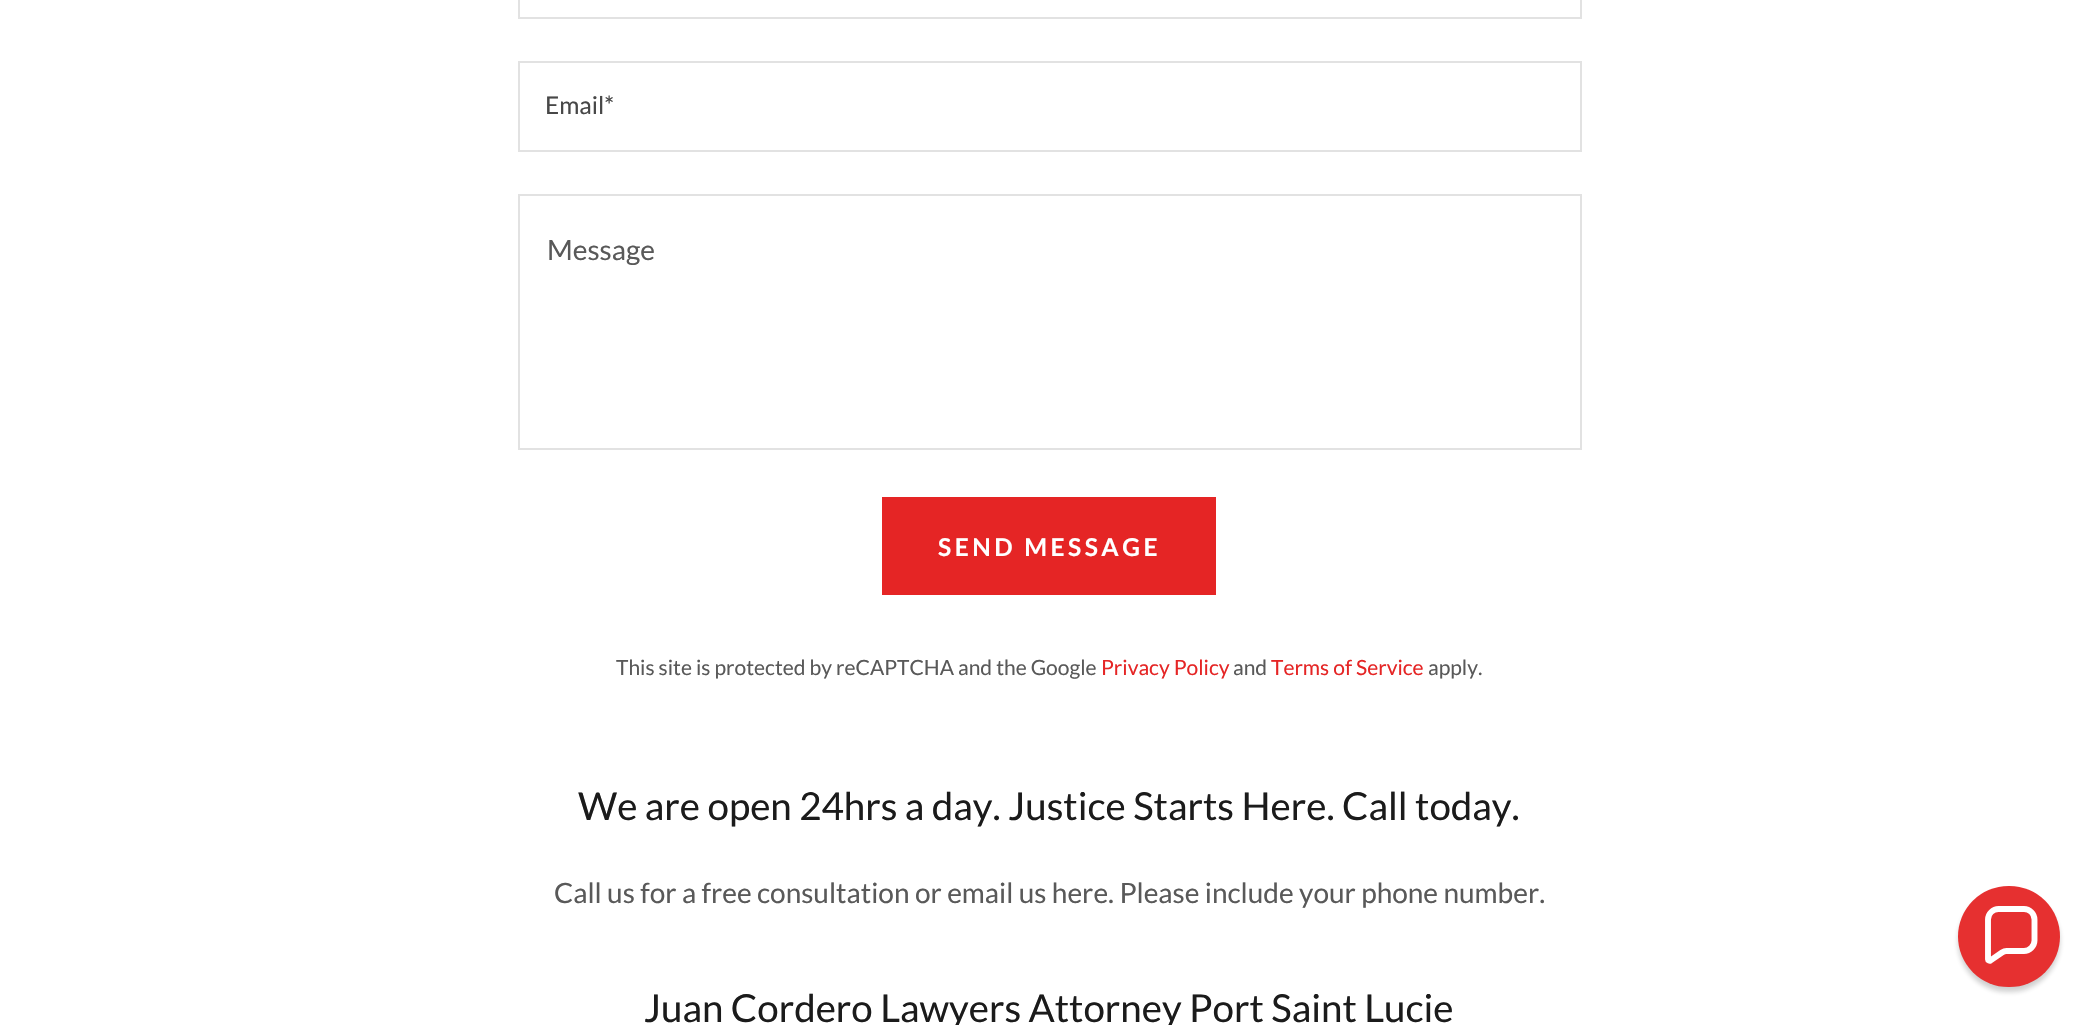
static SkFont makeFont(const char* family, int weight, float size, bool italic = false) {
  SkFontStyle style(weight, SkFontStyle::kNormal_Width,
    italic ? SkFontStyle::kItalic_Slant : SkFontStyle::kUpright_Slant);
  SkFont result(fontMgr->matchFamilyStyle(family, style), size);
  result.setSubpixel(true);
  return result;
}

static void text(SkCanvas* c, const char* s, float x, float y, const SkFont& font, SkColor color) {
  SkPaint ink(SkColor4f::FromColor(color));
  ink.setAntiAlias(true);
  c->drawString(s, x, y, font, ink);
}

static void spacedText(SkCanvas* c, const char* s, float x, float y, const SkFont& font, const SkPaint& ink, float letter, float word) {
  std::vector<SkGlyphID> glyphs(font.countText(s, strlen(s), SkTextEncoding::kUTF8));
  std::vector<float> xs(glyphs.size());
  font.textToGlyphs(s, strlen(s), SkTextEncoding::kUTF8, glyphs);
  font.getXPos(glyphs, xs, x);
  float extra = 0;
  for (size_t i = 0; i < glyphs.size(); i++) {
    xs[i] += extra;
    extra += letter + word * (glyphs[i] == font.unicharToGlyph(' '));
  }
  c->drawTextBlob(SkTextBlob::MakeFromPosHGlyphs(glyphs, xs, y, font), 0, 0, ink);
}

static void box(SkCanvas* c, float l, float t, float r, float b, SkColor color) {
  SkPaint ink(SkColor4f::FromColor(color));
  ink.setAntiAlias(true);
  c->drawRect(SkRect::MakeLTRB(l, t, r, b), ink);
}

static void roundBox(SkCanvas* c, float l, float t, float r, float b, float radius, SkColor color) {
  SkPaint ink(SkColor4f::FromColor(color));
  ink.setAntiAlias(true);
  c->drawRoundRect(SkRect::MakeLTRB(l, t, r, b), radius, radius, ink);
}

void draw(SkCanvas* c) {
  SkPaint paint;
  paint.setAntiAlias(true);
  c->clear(0xffffffff);
  paint.setStyle(SkPaint::kStroke_Style);
  paint.setStrokeWidth(2);
  paint.setColor(0xffe2e2e2);
  c->drawRect(SkRect::MakeLTRB(519, -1, 1581, 18), paint);
  c->drawRect(SkRect::MakeLTRB(519, 62, 1581, 151), paint);
  SkFont face1 = makeFont("Lato", 400, 24.5f);
  text(c, "Email*", 545, 114, face1, 0xff474747);
  c->drawRect(SkRect::MakeLTRB(519, 195, 1581, 449), paint);
  SkFont face2 = makeFont("Lato", 400, 28);
  text(c, "Message", 547, 260, face2, 0xff595959);
  box(c, 882, 497, 1216, 595, 0xffe52525);
  SkFont face3 = makeFont("Lato", 700, 24.5f);
  paint.setStyle(SkPaint::kFill_Style);
  paint.setColor(0xffffffff);
  spacedText(c, "SEND MESSAGE", 938, 556, face3, paint, 3.5f, 0);
  SkFont face4 = makeFont("Lato", 400, 21);
  text(c, "This site is protected by reCAPTCHA and the Google", 616, 675, face4, 0xff595959);
  text(c, "Privacy Policy", 1101, 675, face4, 0xffe52525);
  text(c, "and", 1233, 675, face4, 0xff595959);
  text(c, "Terms of Service", 1271, 675, face4, 0xffe52525);
  text(c, "apply.", 1428, 675, face4, 0xff595959);
  SkFont face5 = makeFont("Lato", 400, 38.5f);
  text(c, "We are open 24hrs a day. Justice Starts Here. Call today.", 578, 820, face5, 0xff1b1b1b);
  text(c, "Call us for a free consultation or email us here. Please include your phone number.", 554, 903, face2, 0xff595959);
  text(c, "Juan Cordero Lawyers Attorney Port Saint Lucie", 644, 1022, face5, 0xff1b1b1b);
  paint.setColor(0x330d0d0d);
  paint.setMaskFilter(SkMaskFilter::MakeBlur(kNormal_SkBlurStyle, 2.5f));
  c->drawRoundRect(SkRect::MakeLTRB(1958, 891, 2060, 992), 50.5f, 50.5f, paint);
  paint.setMaskFilter(nullptr);
  roundBox(c, 1958, 886, 2060, 987, 50.5f, 0xffe63030);
  paint.setStyle(SkPaint::kStroke_Style);
  paint.setStrokeWidth(5.9f);
  paint.setColor(0xffffffff);
  c->drawPath(SkPathBuilder().moveTo(2024, 909).lineTo(1998.5f, 909).cubicTo(1993, 909, 1988, 913.5f, 1988, 919.5f).lineTo(1988, 959.5f).cubicTo(1988, 960.5f, 1989.5f, 961, 1990.5f, 960.5f).lineTo(2002, 952.5f).cubicTo(2003.5f, 951.5f, 2005, 951, 2006.5f, 951).lineTo(2024, 951).cubicTo(2029.5f, 951, 2034.5f, 946, 2034.5f, 940.5f).lineTo(2034.5f, 919.5f).cubicTo(2034.5f, 913.5f, 2029.5f, 909, 2024, 909).close().detach(), paint);
}
